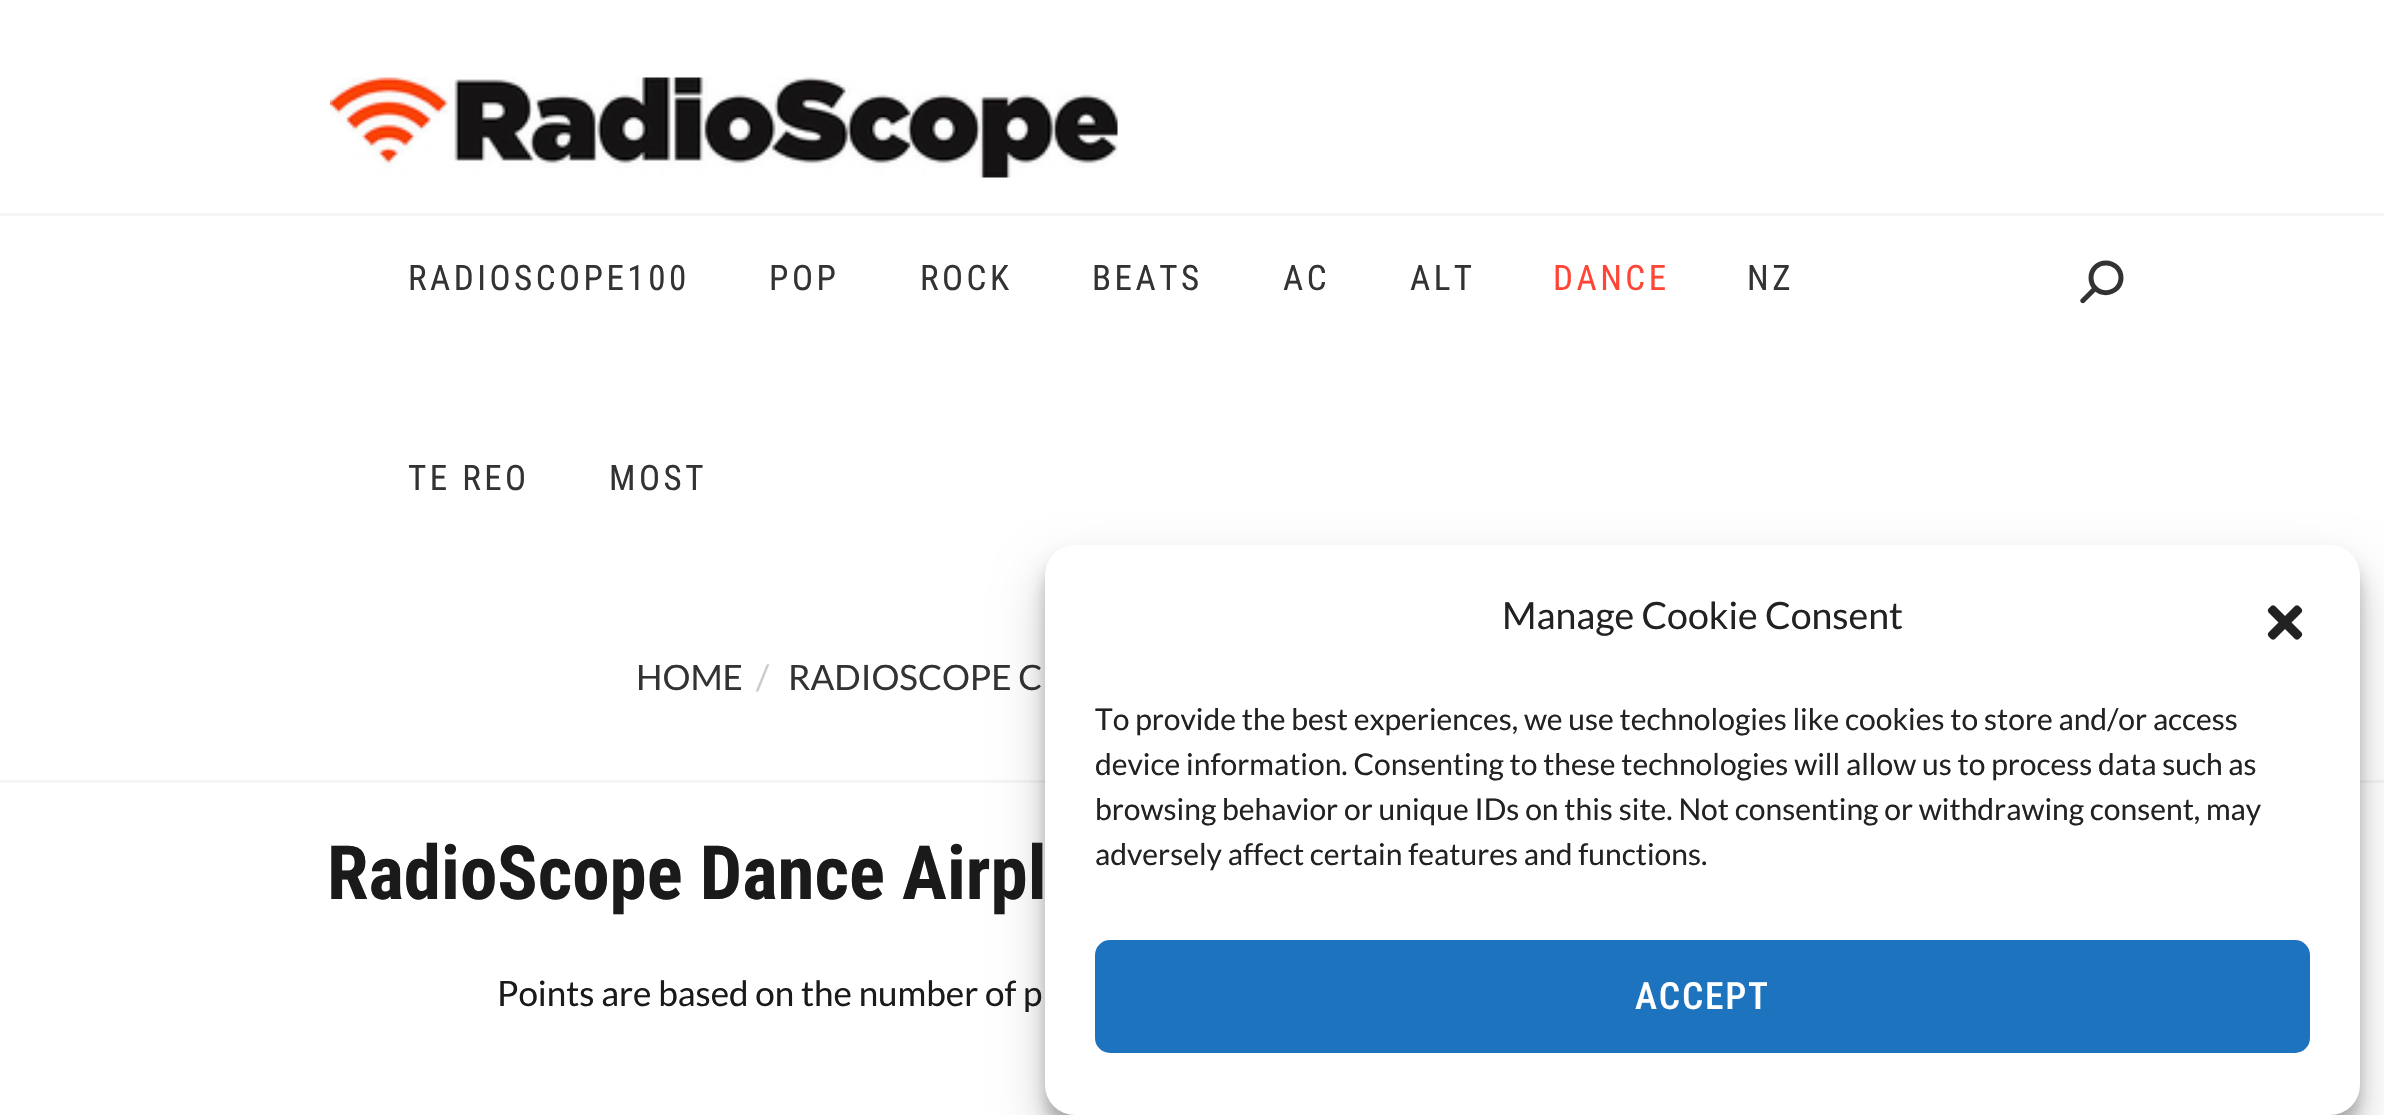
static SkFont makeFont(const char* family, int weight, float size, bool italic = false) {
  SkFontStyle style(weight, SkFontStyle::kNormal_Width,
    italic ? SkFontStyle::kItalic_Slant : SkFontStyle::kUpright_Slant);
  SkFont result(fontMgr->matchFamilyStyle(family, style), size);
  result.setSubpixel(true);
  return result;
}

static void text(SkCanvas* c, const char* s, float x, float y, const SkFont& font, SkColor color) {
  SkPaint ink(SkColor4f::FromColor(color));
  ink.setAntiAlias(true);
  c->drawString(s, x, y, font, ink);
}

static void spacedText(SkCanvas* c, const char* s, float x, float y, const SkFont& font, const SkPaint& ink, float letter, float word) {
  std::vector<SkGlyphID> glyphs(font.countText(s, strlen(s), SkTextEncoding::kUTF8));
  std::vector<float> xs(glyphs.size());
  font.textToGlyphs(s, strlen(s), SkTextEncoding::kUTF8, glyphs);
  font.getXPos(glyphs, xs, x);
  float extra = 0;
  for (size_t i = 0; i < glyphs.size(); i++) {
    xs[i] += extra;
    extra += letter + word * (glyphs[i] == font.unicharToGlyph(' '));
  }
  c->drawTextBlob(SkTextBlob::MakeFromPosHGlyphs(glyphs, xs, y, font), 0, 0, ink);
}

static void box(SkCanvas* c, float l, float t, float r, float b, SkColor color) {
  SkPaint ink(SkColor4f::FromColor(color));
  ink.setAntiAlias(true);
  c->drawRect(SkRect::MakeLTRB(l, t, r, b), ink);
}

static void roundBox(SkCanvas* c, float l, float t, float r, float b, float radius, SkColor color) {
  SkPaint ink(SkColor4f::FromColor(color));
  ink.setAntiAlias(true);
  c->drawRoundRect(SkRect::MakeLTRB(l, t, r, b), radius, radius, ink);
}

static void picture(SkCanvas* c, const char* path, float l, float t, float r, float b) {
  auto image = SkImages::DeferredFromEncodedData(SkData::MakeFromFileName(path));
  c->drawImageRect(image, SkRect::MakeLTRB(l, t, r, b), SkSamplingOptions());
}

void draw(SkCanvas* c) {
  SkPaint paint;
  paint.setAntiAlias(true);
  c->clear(0xffffffff);
  box(c, 0, 213, 2384, 216, 0xfff5f5f5);
  picture(c, "img_01.png", 330, 77, 1118, 178);
  SkFont face1 = makeFont("Roboto Condensed", 400, 35);
  paint.setColor(0xff333333);
  spacedText(c, "RADIOSCOPE100", 408, 290, face1, paint, 3.5f, 0);
  spacedText(c, "POP", 769, 290, face1, paint, 3.5f, 0);
  spacedText(c, "ROCK", 920, 290, face1, paint, 3.5f, 0);
  spacedText(c, "BEATS", 1092, 290, face1, paint, 3.5f, 0);
  spacedText(c, "AC", 1283, 290, face1, paint, 3.5f, 0);
  spacedText(c, "ALT", 1410, 290, face1, paint, 3.5f, 0);
  paint.setColor(0xffff4636);
  spacedText(c, "DANCE", 1553, 290, face1, paint, 3.5f, 0);
  paint.setColor(0xff333333);
  spacedText(c, "NZ", 1747, 290, face1, paint, 3.5f, 0);
  spacedText(c, "TE REO", 408, 490, face1, paint, 3.5f, 0);
  spacedText(c, "MOST", 609, 490, face1, paint, 3.5f, 0);
  c->drawPath(SkPathBuilder().moveTo(2097, 286.5f).cubicTo(2098, 287.5f, 2098, 289, 2097, 290).lineTo(2084.5f, 302.5f).cubicTo(2084, 303.5f, 2082, 303.5f, 2081, 302.5f).cubicTo(2080, 301.5f, 2080, 300, 2081, 299).lineTo(2093.5f, 286.5f).cubicTo(2094.5f, 285.5f, 2096, 285.5f, 2097, 286.5f).close().detach(), paint);
  paint.setStyle(SkPaint::kStroke_Style);
  paint.setStrokeWidth(5);
  c->drawPath(SkPathBuilder().moveTo(2116.5f, 267).cubicTo(2122.5f, 273, 2122.5f, 282.5f, 2116.5f, 288.5f).cubicTo(2110.5f, 294, 2101, 294, 2095.5f, 288.5f).cubicTo(2089.5f, 282.5f, 2089.5f, 273, 2095.5f, 267).cubicTo(2101, 261.5f, 2110.5f, 261.5f, 2116.5f, 267).close().detach(), paint);
  box(c, 0, 780, 2384, 783, 0xfff5f5f5);
  SkFont face2 = makeFont("Lato", 400, 35);
  text(c, "HOME", 636, 690, face2, 0xff333333);
  text(c, "/", 756, 690, face2, 0xffcccccc);
  text(c, "RADIOSCOPE C", 788, 690, face2, 0xff333333);
  paint.setStyle(SkPaint::kFill_Style);
  paint.setColor(0x3b000000);
  paint.setMaskFilter(SkMaskFilter::MakeBlur(kNormal_SkBlurStyle, 7.5f));
  c->drawRoundRect(SkRect::MakeLTRB(1045, 560, 2360, 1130), 30, 30, paint);
  paint.setMaskFilter(nullptr);
  paint.setColor(0x30000000);
  paint.setMaskFilter(SkMaskFilter::MakeBlur(kNormal_SkBlurStyle, 25));
  c->drawRoundRect(SkRect::MakeLTRB(1045, 570, 2360, 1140), 30, 30, paint);
  paint.setMaskFilter(nullptr);
  roundBox(c, 1045, 545, 2360, 1115, 30, 0xffffffff);
  SkFont face3 = makeFont("Lato", 400, 37.5f);
  text(c, "Manage Cookie Consent", 1502, 629, face3, 0xff222222);
  picture(c, "img_02.png", 2267, 605, 2303, 640);
  SkFont face4 = makeFont("Lato", 400, 30);
  text(c, "To provide the best experiences, we use technologies like cookies to store and/or access", 1095, 730, face4, 0xff222222);
  text(c, "device information. Consenting to these technologies will allow us to process data such as", 1095, 775, face4, 0xff222222);
  text(c, "browsing behavior or unique IDs on this site. Not consenting or withdrawing consent, may", 1095, 820, face4, 0xff222222);
  text(c, "adversely affect certain features and functions.", 1095, 865, face4, 0xff222222);
  paint.setColor(0xff1e73be);
  c->drawRoundRect(SkRect::MakeLTRB(1096.5f, 941.5f, 2308.5f, 1051.5f), 13.5f, 13.5f, paint);
  paint.setStyle(SkPaint::kStroke_Style);
  paint.setStrokeWidth(3);
  c->drawRoundRect(SkRect::MakeLTRB(1096.5f, 941.5f, 2308.5f, 1051.5f), 13.5f, 13.5f, paint);
  SkFont face5 = makeFont("Roboto Condensed", 500, 37.5f);
  paint.setStyle(SkPaint::kFill_Style);
  paint.setColor(0xffffffff);
  spacedText(c, "ACCEPT", 1635, 1009, face5, paint, 1.75f, 0);
  SkFont face6 = makeFont("Roboto Condensed", 700, 75);
  text(c, "RadioScope Dance Airpl", 327, 899, face6, 0xff1a1a1a);
  text(c, "Points are based on the number of p", 497, 1006, face2, 0xff1a1a1a);
}
